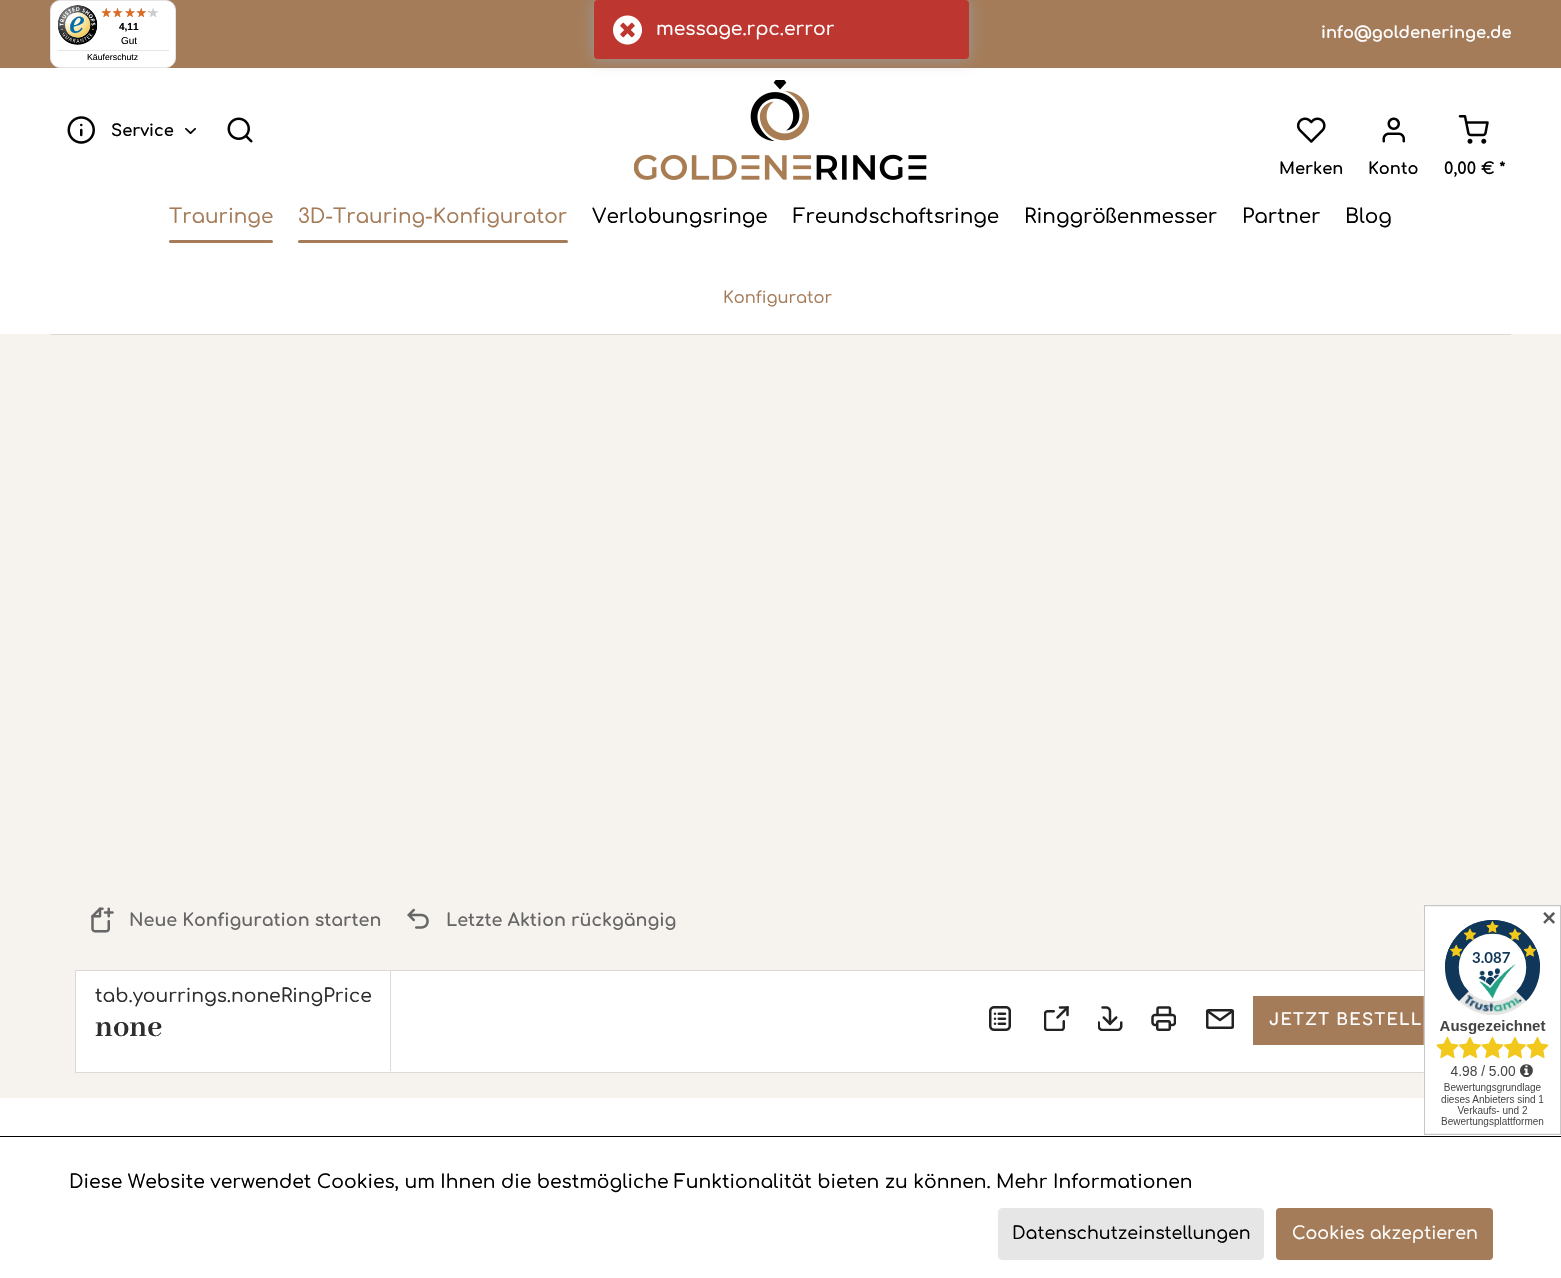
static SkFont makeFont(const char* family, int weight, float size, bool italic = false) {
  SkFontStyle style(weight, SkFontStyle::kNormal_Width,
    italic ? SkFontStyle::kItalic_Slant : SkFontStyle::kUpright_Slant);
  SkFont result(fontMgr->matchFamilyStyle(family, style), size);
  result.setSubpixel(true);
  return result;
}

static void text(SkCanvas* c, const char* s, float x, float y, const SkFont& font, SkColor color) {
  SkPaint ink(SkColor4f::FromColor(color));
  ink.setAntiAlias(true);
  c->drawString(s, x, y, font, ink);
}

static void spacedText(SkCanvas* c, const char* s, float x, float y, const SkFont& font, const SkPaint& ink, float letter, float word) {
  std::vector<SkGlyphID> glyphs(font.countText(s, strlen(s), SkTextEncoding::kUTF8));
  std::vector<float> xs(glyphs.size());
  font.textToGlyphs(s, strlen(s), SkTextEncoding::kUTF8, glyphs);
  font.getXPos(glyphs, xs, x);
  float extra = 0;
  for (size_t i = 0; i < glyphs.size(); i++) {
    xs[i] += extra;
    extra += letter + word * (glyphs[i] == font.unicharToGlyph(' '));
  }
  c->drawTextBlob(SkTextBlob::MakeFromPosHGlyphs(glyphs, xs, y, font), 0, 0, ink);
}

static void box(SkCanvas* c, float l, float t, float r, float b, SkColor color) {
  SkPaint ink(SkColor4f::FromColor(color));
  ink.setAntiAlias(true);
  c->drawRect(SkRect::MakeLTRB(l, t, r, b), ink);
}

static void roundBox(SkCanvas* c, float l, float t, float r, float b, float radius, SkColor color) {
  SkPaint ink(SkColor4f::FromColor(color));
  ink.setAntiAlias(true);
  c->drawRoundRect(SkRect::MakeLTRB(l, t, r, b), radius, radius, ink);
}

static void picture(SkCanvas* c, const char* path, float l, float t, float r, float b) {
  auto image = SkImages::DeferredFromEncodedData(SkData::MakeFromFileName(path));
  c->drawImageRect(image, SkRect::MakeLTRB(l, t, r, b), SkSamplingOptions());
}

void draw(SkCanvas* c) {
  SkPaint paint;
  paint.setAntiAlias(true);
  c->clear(0xffffffff);
  box(c, 0, 0, 1561, 68, 0xffa57c59);
  paint.setColor(0xffffffff);
  c->drawRoundRect(SkRect::MakeLTRB(50.5f, 0.5f, 175.5f, 67.5f), 9.5f, 9.5f, paint);
  paint.setStyle(SkPaint::kStroke_Style);
  paint.setStrokeWidth(1);
  paint.setColor(0xffe5e5e5);
  c->drawRoundRect(SkRect::MakeLTRB(50.5f, 0.5f, 175.5f, 67.5f), 9.5f, 9.5f, paint);
  picture(c, "img_01.png", 58, 5, 98, 45);
  picture(c, "img_02.png", 101, 8, 111, 17);
  picture(c, "img_03.png", 113, 8, 122, 17);
  picture(c, "img_04.png", 125, 8, 135, 17);
  picture(c, "img_05.png", 136, 8, 146, 17);
  picture(c, "img_06.png", 148, 8, 159, 17);
  picture(c, "img_07.png", 101, 8, 111, 17);
  picture(c, "img_08.png", 113, 8, 122, 17);
  picture(c, "img_09.png", 125, 8, 135, 17);
  picture(c, "img_10.png", 136, 8, 146, 17);
  picture(c, "img_11.png", 148, 11, 149, 13);
  SkFont face1 = makeFont("Liberation Sans", 700, 10);
  text(c, "4,11", 119, 30, face1, 0xff000000);
  SkFont face2 = makeFont("Liberation Sans", 400, 10);
  text(c, "Gut", 121, 44, face2, 0xff000000);
  box(c, 58, 50, 169, 51, 0xffe5e5e5);
  SkFont face3 = makeFont("Liberation Sans", 400, 8.75f);
  text(c, "Käuferschutz", 87, 60, face3, 0xff000000);
  SkFont face4 = makeFont("Comfortaa", 700, 16.25f);
  text(c, "info@goldeneringe.de", 1321, 38, face4, 0xffffffff);
  picture(c, "img_12.png", 67, 116, 95, 144);
  text(c, "Service", 111, 136, face4, 0xff000000);
  picture(c, "img_13.png", 185, 127, 196, 135);
  picture(c, "img_14.png", 634, 80, 927, 180);
  picture(c, "img_15.png", 227, 117, 253, 143);
  picture(c, "img_16.png", 1296, 117, 1326, 143);
  text(c, "Merken", 1279, 174, face4, 0xff000000);
  picture(c, "img_17.png", 1382, 117, 1405, 143);
  text(c, "Konto", 1368, 174, face4, 0xff000000);
  picture(c, "img_18.png", 1458, 115, 1489, 144);
  text(c, "0,00 € *", 1444, 174, face4, 0xff000000);
  SkFont face5 = makeFont("Comfortaa", 500, 20);
  text(c, "Trauringe", 169, 223, face5, 0xffa57c59);
  roundBox(c, 169, 240, 273, 243, 1.5f, 0xffa57c59);
  text(c, "3D-Trauring-Konfigurator", 298, 223, face5, 0xffa57c59);
  roundBox(c, 298, 240, 568, 243, 1.5f, 0xffa57c59);
  text(c, "Verlobungsringe", 592, 223, face5, 0xff000000);
  text(c, "Freundschaftsringe", 793, 223, face5, 0xff000000);
  text(c, "Ringgrößenmesser", 1024, 223, face5, 0xff000000);
  text(c, "Partner", 1242, 223, face5, 0xff000000);
  text(c, "Blog", 1345, 223, face5, 0xff000000);
  SkFont face6 = makeFont("Comfortaa", 500, 16.25f);
  text(c, "Konfigurator", 723, 303, face6, 0xffa57c59);
  box(c, 0, 334, 1561, 1098, 0xfff6f2ee);
  box(c, 50, 334, 1511, 335, 0xffdddad6);
  picture(c, "img_19.png", 91, 907, 114, 933);
  SkFont face7 = makeFont("Comfortaa", 700, 17.5f);
  text(c, "Neue Konfiguration starten", 129, 926, face7, 0xff666666);
  picture(c, "img_20.png", 407, 908, 429, 929);
  text(c, "Letzte Aktion rückgängig", 446, 926, face7, 0xff666666);
  box(c, 76, 971, 1424, 1072, 0xffffffff);
  paint.setColor(0xffdcd9d7);
  c->drawRect(SkRect::MakeLTRB(75.5f, 970.5f, 1485.5f, 1072.5f), paint);
  box(c, 390, 971, 391, 1071, 0xffdcd9d7);
  SkFont face8 = makeFont("Comfortaa", 500, 18.75f);
  text(c, "tab.yourrings.noneRingPrice", 95, 1002, face8, 0xff2e2e2e);
  SkFont face9 = makeFont("Abhaya Libre", 700, 32.5f);
  text(c, "none", 95, 1036, face9, 0xff2e2e2e);
  picture(c, "img_21.png", 989, 1006, 1011, 1031);
  picture(c, "img_22.png", 1044, 1006, 1069, 1031);
  picture(c, "img_23.png", 1098, 1006, 1123, 1031);
  picture(c, "img_24.png", 1151, 1006, 1176, 1031);
  paint.setStrokeWidth(2.5f);
  paint.setColor(0xff222222);
  c->drawRoundRect(SkRect::MakeLTRB(1207.25f, 1010.25f, 1232.75f, 1027.75f), 1.25f, 1.25f, paint);
  paint.setStrokeCap(SkPaint::kRound_Cap);
  paint.setStrokeJoin(SkPaint::kRound_Join);
  c->drawPath(SkPathBuilder().moveTo(1207.5f, 1011).lineTo(1220, 1020).lineTo(1232.5f, 1011).detach(), paint);
  box(c, 1253, 996, 1424, 1045, 0xffa57c59);
  paint.setStyle(SkPaint::kFill_Style);
  paint.setColor(0xffffffff);
  spacedText(c, "JETZT BESTELL", 1269, 1025, face4, paint, 1.25f, 0);
  paint.setColor(0xff999999);
  paint.setMaskFilter(SkMaskFilter::MakeBlur(kNormal_SkBlurStyle, 7.5f));
  c->drawRoundRect(SkRect::MakeLTRB(594, 0, 969, 59), 4, 4, paint);
  paint.setMaskFilter(nullptr);
  roundBox(c, 594, 0, 969, 59, 4, 0xffbd362f);
  picture(c, "img_25.png", 613, 15, 642, 45);
  text(c, "message.rpc.error", 656, 35, face8, 0xffffffff);
  picture(c, "img_26.png", 1423, 905, 1561, 1135);
  SkFont face10 = makeFont("DejaVu Sans", 700, 18.75f);
  text(c, "✕", 1541, 925, face10, 0xff595959);
  box(c, 0, 1136, 1561, 1137, 0xff010101);
  text(c, "Diese Website verwendet Cookies, um Ihnen die bestmögliche Funktionalität bieten zu können. Mehr Informationen", 69, 1188, face8, 0xff000000);
  roundBox(c, 999, 1209, 1263, 1259, 2.5f, 0xffe6e6e6);
  paint.setStyle(SkPaint::kStroke_Style);
  paint.setStrokeWidth(1);
  paint.setStrokeCap(SkPaint::kButt_Cap);
  paint.setStrokeJoin(SkPaint::kMiter_Join);
  paint.setColor(0xffe6e6e6);
  c->drawRoundRect(SkRect::MakeLTRB(998.5f, 1208.5f, 1263.5f, 1259.5f), 3.5f, 3.5f, paint);
  SkFont face11 = makeFont("Comfortaa", 500, 17.5f);
  text(c, "Datenschutzeinstellungen", 1012, 1239, face11, 0xff000000);
  roundBox(c, 1276, 1208, 1493, 1260, 4, 0xffa57c59);
  text(c, "Cookies akzeptieren", 1292, 1239, face11, 0xffffffff);
}
